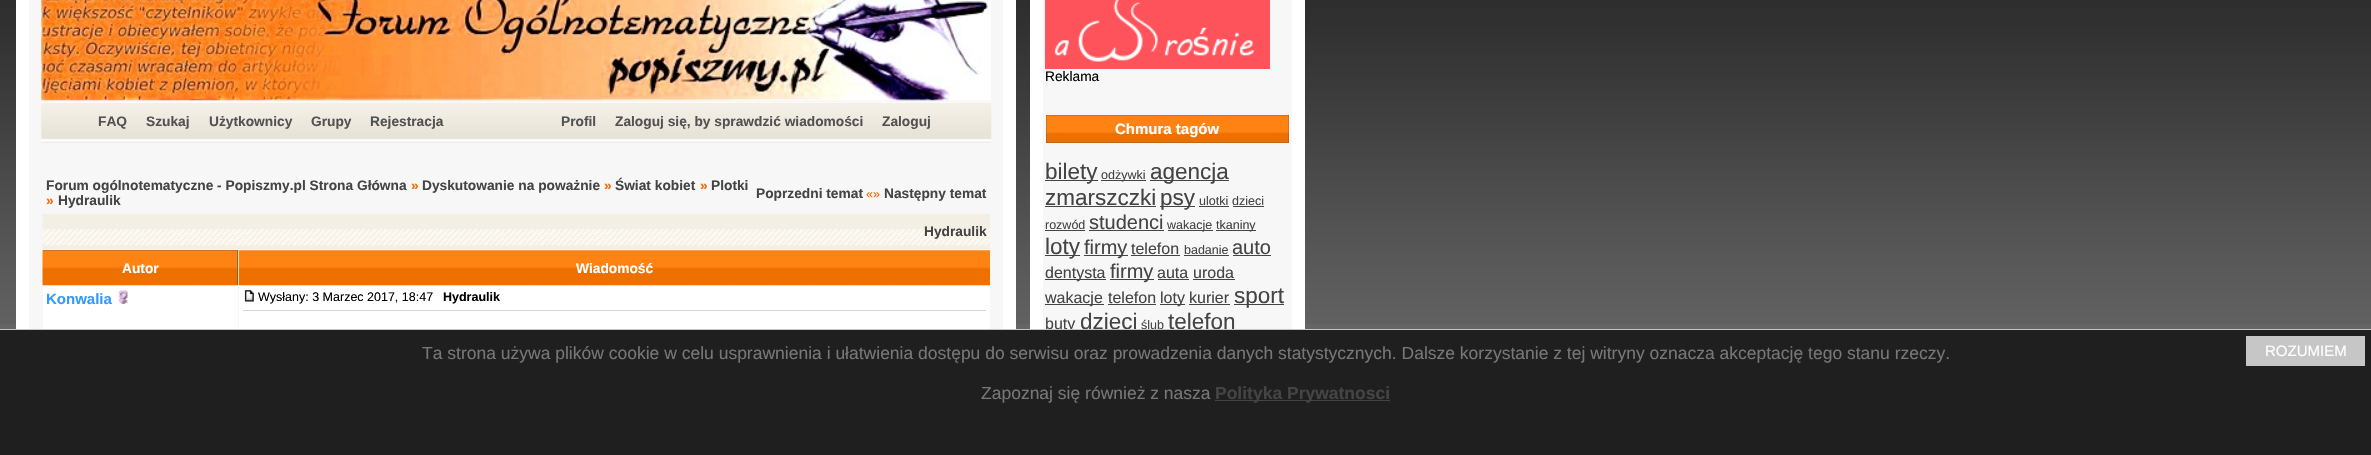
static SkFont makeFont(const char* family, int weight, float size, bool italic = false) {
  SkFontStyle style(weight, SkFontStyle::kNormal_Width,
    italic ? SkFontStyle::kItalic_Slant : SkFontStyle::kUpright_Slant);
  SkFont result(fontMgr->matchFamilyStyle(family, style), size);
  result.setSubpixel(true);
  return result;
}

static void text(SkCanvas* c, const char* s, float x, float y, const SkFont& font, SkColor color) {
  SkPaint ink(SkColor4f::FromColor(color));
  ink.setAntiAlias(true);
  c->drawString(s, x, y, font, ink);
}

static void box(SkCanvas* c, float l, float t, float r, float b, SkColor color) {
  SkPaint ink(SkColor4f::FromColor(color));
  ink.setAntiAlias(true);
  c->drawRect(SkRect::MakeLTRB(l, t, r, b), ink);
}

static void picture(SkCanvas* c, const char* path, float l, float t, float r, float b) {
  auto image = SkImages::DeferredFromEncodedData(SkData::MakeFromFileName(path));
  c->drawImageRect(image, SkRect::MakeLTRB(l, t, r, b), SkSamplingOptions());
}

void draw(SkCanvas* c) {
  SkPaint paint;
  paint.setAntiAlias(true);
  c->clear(0xff656565);
  picture(c, "img_01.png", 0, 0, 2371, 324);
  box(c, 1043, 0, 1292, 329, 0xfff7f7f7);
  paint.setStyle(SkPaint::kStroke_Style);
  paint.setStrokeWidth(13);
  paint.setColor(0xffffffff);
  c->drawRect(SkRect::MakeLTRB(1036.5f, -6.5f, 1298.5f, 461.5f), paint);
  picture(c, "img_02.png", 1045, 0, 1270, 69);
  SkFont face1 = makeFont("Liberation Sans", 400, 13.75f);
  text(c, "Reklama", 1045, 81, face1, 0xff000000);
  box(c, 1046, 115, 1289, 143, 0xff444444);
  picture(c, "img_03.png", 1046, 115, 1289, 143);
  SkFont face2 = makeFont("Liberation Sans", 700, 15);
  text(c, "Chmura tagów", 1115, 134, face2, 0xffffffff);
  box(c, 1045, 180, 1098, 181, 0xff444444);
  SkFont face3 = makeFont("Liberation Sans", 400, 22.5f);
  text(c, "bilety", 1045, 179, face3, 0xff444444);
  box(c, 1101, 180, 1146, 181, 0xff444444);
  SkFont face4 = makeFont("Liberation Sans", 400, 12.5f);
  text(c, "odżywki", 1101, 179, face4, 0xff444444);
  box(c, 1150, 180, 1229, 181, 0xff444444);
  text(c, "agencja", 1150, 179, face3, 0xff444444);
  text(c, "zmarszczki", 1045, 205, face3, 0xff444444);
  box(c, 1045, 206, 1156, 207, 0xff444444);
  box(c, 1160, 206, 1195, 207, 0xff444444);
  text(c, "psy", 1160, 205, face3, 0xff444444);
  text(c, "ulotki", 1199, 205, face4, 0xff444444);
  box(c, 1199, 206, 1229, 207, 0xff444444);
  text(c, "dzieci", 1232, 205, face4, 0xff444444);
  box(c, 1233, 206, 1264, 207, 0xff444444);
  text(c, "rozwód", 1045, 229, face4, 0xff444444);
  box(c, 1045, 230, 1085, 231, 0xff444444);
  SkFont face5 = makeFont("Liberation Sans", 400, 20);
  text(c, "studenci", 1089, 229, face5, 0xff444444);
  box(c, 1089, 230, 1164, 231, 0xff444444);
  box(c, 1168, 230, 1213, 231, 0xff444444);
  text(c, "wakacje", 1167, 229, face4, 0xff444444);
  box(c, 1216, 230, 1256, 231, 0xff444444);
  text(c, "tkaniny", 1216, 229, face4, 0xff444444);
  box(c, 1045, 255, 1080, 256, 0xff444444);
  text(c, "loty", 1045, 254, face3, 0xff444444);
  box(c, 1084, 255, 1128, 256, 0xff444444);
  text(c, "firmy", 1084, 254, face5, 0xff444444);
  SkFont face6 = makeFont("Liberation Sans", 400, 16);
  text(c, "telefon", 1131, 254, face6, 0xff444444);
  box(c, 1131, 255, 1180, 256, 0xff444444);
  text(c, "badanie", 1184, 254, face4, 0xff444444);
  box(c, 1184, 255, 1229, 256, 0xff444444);
  text(c, "auto", 1232, 254, face5, 0xff444444);
  box(c, 1233, 255, 1271, 256, 0xff444444);
  box(c, 1045, 279, 1106, 280, 0xff444444);
  text(c, "dentysta", 1045, 278, face6, 0xff444444);
  box(c, 1110, 279, 1154, 280, 0xff444444);
  text(c, "firmy", 1110, 278, face5, 0xff444444);
  text(c, "auta", 1157, 278, face6, 0xff444444);
  box(c, 1158, 279, 1189, 280, 0xff444444);
  text(c, "uroda", 1193, 278, face6, 0xff444444);
  box(c, 1193, 279, 1235, 280, 0xff444444);
  box(c, 1045, 304, 1104, 305, 0xff444444);
  text(c, "wakacje", 1045, 303, face6, 0xff444444);
  text(c, "telefon", 1108, 303, face6, 0xff444444);
  box(c, 1108, 304, 1156, 305, 0xff444444);
  box(c, 1160, 304, 1185, 305, 0xff444444);
  text(c, "loty", 1160, 303, face6, 0xff444444);
  text(c, "kurier", 1189, 303, face6, 0xff444444);
  box(c, 1189, 304, 1230, 305, 0xff444444);
  box(c, 1234, 304, 1284, 305, 0xff444444);
  text(c, "sport", 1234, 303, face3, 0xff444444);
  text(c, "buty", 1045, 329, face6, 0xff444444);
  text(c, "dzieci", 1080, 329, face3, 0xff444444);
  text(c, "ślub", 1141, 329, face4, 0xff444444);
  text(c, "telefon", 1168, 329, face3, 0xff444444);
  box(c, 29, 0, 1003, 329, 0xfff7f7f7);
  c->drawRect(SkRect::MakeLTRB(22.5f, -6.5f, 1009.5f, 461.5f), paint);
  picture(c, "img_04.png", 41, 0, 991, 101);
  picture(c, "img_05.png", 41, 102, 992, 143);
  SkFont face7 = makeFont("Liberation Sans", 700, 13.75f);
  text(c, "FAQ", 98, 126, face7, 0xff525252);
  text(c, "Szukaj", 146, 126, face7, 0xff525252);
  text(c, "Użytkownicy", 209, 126, face7, 0xff525252);
  text(c, "Grupy", 311, 126, face7, 0xff525252);
  text(c, "Rejestracja", 370, 126, face7, 0xff525252);
  text(c, "Profil", 561, 126, face7, 0xff525252);
  text(c, "Zaloguj się, by sprawdzić wiadomości", 615, 126, face7, 0xff525252);
  text(c, "Zaloguj", 882, 126, face7, 0xff525252);
  text(c, "Forum ogólnotematyczne - Popiszmy.pl Strona Główna", 46, 190, face7, 0xff444444);
  text(c, "»", 411, 190, face7, 0xffff6600);
  text(c, "Dyskutowanie na poważnie", 422, 190, face7, 0xff444444);
  text(c, "»", 604, 190, face7, 0xffff6600);
  text(c, "Świat kobiet", 615, 190, face7, 0xff444444);
  text(c, "»", 700, 190, face7, 0xffff6600);
  text(c, "Plotki", 711, 190, face7, 0xff444444);
  text(c, "»", 46, 205, face7, 0xffff6600);
  text(c, "Hydraulik", 58, 205, face7, 0xff444444);
  text(c, "Poprzedni temat", 756, 198, face7, 0xff444444);
  text(c, "«»", 866, 198, face4, 0xffff6600);
  text(c, "Następny temat", 884, 198, face7, 0xff444444);
  picture(c, "img_06.png", 42, 214, 990, 249);
  text(c, "Hydraulik", 924, 236, face7, 0xff444444);
  box(c, 43, 250, 238, 285, 0xff444444);
  picture(c, "img_07.png", 42, 250, 238, 286);
  text(c, "Autor", 122, 273, face7, 0xffffffff);
  picture(c, "img_08.png", 238, 250, 990, 286);
  text(c, "Wiadomość", 576, 273, face7, 0xffffffff);
  box(c, 43, 286, 238, 329, 0xffffffff);
  text(c, "Konwalia", 46, 304, face2, 0xff3399ff);
  picture(c, "img_09.png", 118, 290, 128, 304);
  box(c, 239, 286, 990, 329, 0xffffffff);
  picture(c, "img_10.png", 244, 290, 254, 302);
  text(c, "Wysłany: 3 Marzec 2017, 18:47", 258, 301, face4, 0xff000000);
  SkFont face8 = makeFont("Liberation Sans", 700, 12.5f);
  text(c, "Hydraulik", 443, 301, face8, 0xff000000);
  box(c, 243, 310, 986, 311, 0xffd1d7dc);
  box(c, 0, 330, 2371, 455, 0xff1f1f1f);
  box(c, 0, 329, 2371, 330, 0xffc6c6c6);
  SkFont face9 = makeFont("Liberation Sans", 400, 17.5f);
  text(c, "Ta strona używa plików cookie w celu usprawnienia i ułatwienia dostępu do serwisu oraz prowadzenia danych statystycznych. Dalsze korzystanie z tej witryny oznacza akceptację tego stanu rzeczy.", 422, 359, face9, 0xff777777);
  text(c, "Zapoznaj się również z nasza", 981, 399, face9, 0xff777777);
  box(c, 1215, 400, 1390, 401, 0xff444444);
  SkFont face10 = makeFont("Liberation Sans", 700, 17.5f);
  text(c, "Polityka Prywatnosci", 1215, 399, face10, 0xff444444);
  box(c, 2246, 336, 2365, 366, 0xffc6c6c6);
  SkFont face11 = makeFont("Liberation Sans", 400, 15);
  text(c, "ROZUMIEM", 2265, 356, face11, 0xffffffff);
}
